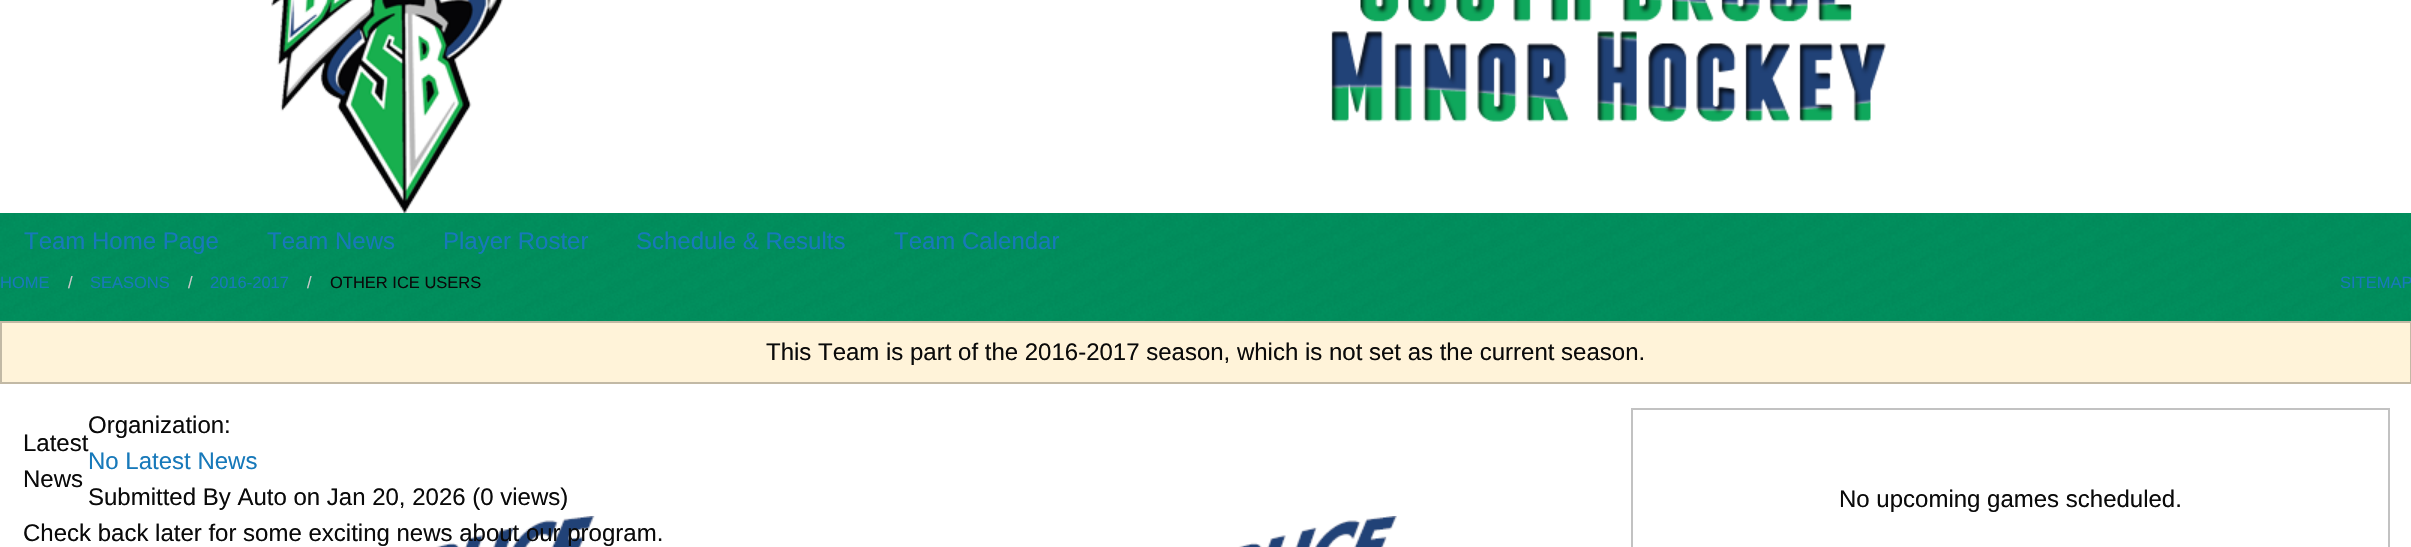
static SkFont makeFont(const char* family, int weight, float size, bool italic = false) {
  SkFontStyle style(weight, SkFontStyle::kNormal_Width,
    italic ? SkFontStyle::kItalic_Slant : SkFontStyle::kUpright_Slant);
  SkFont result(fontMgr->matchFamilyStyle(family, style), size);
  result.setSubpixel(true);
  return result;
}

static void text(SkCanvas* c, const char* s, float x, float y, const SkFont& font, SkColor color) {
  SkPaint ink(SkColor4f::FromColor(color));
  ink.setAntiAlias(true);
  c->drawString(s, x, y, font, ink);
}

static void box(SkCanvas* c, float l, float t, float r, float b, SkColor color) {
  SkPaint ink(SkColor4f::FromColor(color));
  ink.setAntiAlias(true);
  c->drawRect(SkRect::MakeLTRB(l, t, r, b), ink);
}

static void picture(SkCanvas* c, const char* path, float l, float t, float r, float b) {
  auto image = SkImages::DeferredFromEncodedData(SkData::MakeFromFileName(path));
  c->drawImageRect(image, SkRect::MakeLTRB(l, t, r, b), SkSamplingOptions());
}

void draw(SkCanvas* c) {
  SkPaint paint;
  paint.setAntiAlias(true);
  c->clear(0xff019b65);
  picture(c, "img_01.png", 0, 213, 2411, 321);
  box(c, 0, 0, 2411, 213, 0xffffffff);
  picture(c, "img_02.png", 271, 0, 503, 213);
  picture(c, "img_03.png", 1331, 0, 1886, 122);
  SkFont face1 = makeFont("Liberation Sans", 400, 24);
  text(c, "Team Home Page", 24, 249, face1, 0xff1779ba);
  text(c, "Team News", 267, 249, face1, 0xff1779ba);
  text(c, "Player Roster", 443, 249, face1, 0xff1779ba);
  text(c, "Schedule & Results", 636, 249, face1, 0xff1779ba);
  text(c, "Team Calendar", 894, 249, face1, 0xff1779ba);
  SkFont face2 = makeFont("Liberation Sans", 400, 16.5f);
  text(c, "HOME", 0, 288, face2, 0xff1779ba);
  text(c, "/", 68, 288, face2, 0xffcacaca);
  text(c, "SEASONS", 90, 288, face2, 0xff1779ba);
  text(c, "/", 188, 288, face2, 0xffcacaca);
  text(c, "2016-2017", 210, 288, face2, 0xff1779ba);
  text(c, "/", 307, 288, face2, 0xffcacaca);
  text(c, "OTHER ICE USERS", 330, 288, face2, 0xff0a0a0a);
  text(c, "SITEMAP", 2340, 288, face2, 0xff1779ba);
  box(c, 0, 384, 2411, 547, 0xffffffff);
  paint.setColor(0xfffff3d9);
  c->drawRect(SkRect::MakeLTRB(1, 322, 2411, 383), paint);
  paint.setStyle(SkPaint::kStroke_Style);
  paint.setStrokeWidth(2);
  paint.setColor(0xffc2b9a5);
  c->drawRect(SkRect::MakeLTRB(1, 322, 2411, 383), paint);
  text(c, "This Team is part of the 2016-2017 season, which is not set as the current season.", 766, 360, face1, 0xff0a0a0a);
  text(c, "Latest", 23, 451, face1, 0xff0a0a0a);
  text(c, "News", 23, 487, face1, 0xff0a0a0a);
  text(c, "Organization:", 88, 433, face1, 0xff0a0a0a);
  text(c, "No Latest News", 88, 469, face1, 0xff1779ba);
  text(c, "Submitted By Auto on Jan 20, 2026 (0 views)", 88, 505, face1, 0xff0a0a0a);
  picture(c, "img_04.png", 436, 516, 1397, 547);
  text(c, "Check back later for some exciting news about our program.", 23, 541, face1, 0xff0a0a0a);
  paint.setColor(0xffc2c2c2);
  c->drawRect(SkRect::MakeLTRB(1632, 409, 2389, 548), paint);
  text(c, "No upcoming games scheduled.", 1839, 507, face1, 0xff0a0a0a);
}
